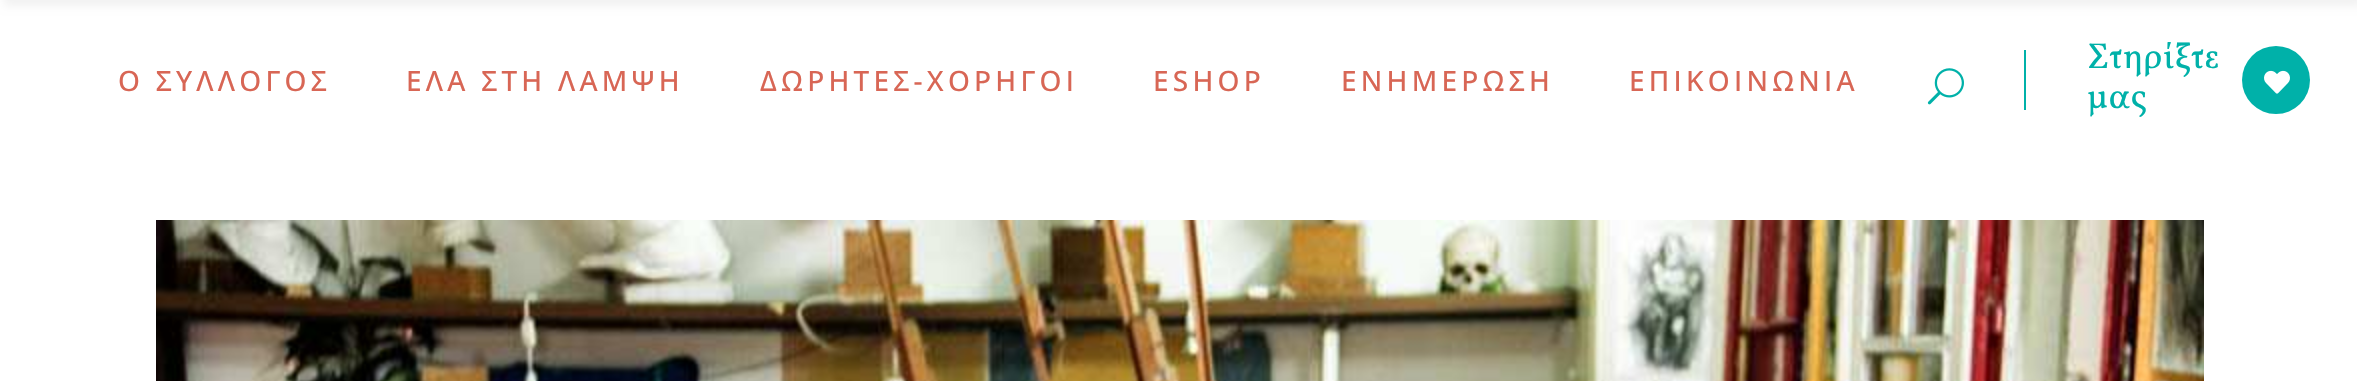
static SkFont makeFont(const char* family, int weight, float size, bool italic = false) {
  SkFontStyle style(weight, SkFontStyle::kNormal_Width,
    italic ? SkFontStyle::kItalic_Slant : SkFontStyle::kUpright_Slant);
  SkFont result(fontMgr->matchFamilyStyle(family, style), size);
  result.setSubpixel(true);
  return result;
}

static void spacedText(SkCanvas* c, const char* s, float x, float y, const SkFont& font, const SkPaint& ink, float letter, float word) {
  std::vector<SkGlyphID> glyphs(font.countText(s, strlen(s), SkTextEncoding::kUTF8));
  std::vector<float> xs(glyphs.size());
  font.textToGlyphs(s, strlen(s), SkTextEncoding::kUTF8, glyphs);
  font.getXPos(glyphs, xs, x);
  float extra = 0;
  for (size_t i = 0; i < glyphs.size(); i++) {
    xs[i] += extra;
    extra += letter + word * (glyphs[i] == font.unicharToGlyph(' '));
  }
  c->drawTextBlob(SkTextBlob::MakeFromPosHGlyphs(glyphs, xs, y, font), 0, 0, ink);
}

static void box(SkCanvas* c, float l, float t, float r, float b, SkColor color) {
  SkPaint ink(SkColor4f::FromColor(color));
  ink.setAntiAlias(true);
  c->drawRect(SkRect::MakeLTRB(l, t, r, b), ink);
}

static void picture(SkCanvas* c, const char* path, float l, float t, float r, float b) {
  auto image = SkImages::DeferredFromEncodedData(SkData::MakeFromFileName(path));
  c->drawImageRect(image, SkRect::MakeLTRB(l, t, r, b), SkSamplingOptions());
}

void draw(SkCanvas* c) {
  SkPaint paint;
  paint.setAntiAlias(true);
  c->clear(0xffffffff);
  paint.setColor(0x0d000000);
  paint.setMaskFilter(SkMaskFilter::MakeBlur(kNormal_SkBlurStyle, 4));
  c->drawRect(SkRect::MakeLTRB(4, -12, 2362, 6), paint);
  paint.setMaskFilter(nullptr);
  SkFont face1 = makeFont("Open Sans", 500, 28);
  paint.setColor(0xffd86655);
  spacedText(c, "Ο ΣΥΛΛΟΓΟΣ", 118, 91, face1, paint, 4.25f, 0);
  spacedText(c, "ΕΛΑ ΣΤΗ ΛΑΜΨΗ", 406, 91, face1, paint, 4.25f, 0);
  spacedText(c, "ΔΩΡΗΤΕΣ-ΧΟΡΗΓΟΙ", 760, 91, face1, paint, 4.25f, 0);
  spacedText(c, "ESHOP", 1153, 91, face1, paint, 4.25f, 0);
  spacedText(c, "ΕΝΗΜΕΡΩΣΗ", 1341, 91, face1, paint, 4.25f, 0);
  spacedText(c, "ΕΠΙΚΟΙΝΩΝΙΑ", 1629, 91, face1, paint, 4.25f, 0);
  picture(c, "img_01.png", 1927, 68, 1964, 105);
  box(c, 2024, 50, 2026, 110, 0xff00b1a9);
  SkFont face2 = makeFont("Vollkorn", 400, 36);
  paint.setColor(0xff00b1a9);
  spacedText(c, "Στηρίξτε", 2087, 68, face2, paint, 0.5f, 0);
  spacedText(c, "μας", 2087, 108, face2, paint, 0.5f, 0);
  c->drawCircle(2276, 80, 34, paint);
  picture(c, "img_02.png", 2264, 70, 2290, 94);
  picture(c, "img_03.png", 156, 220, 2204, 381);
}
